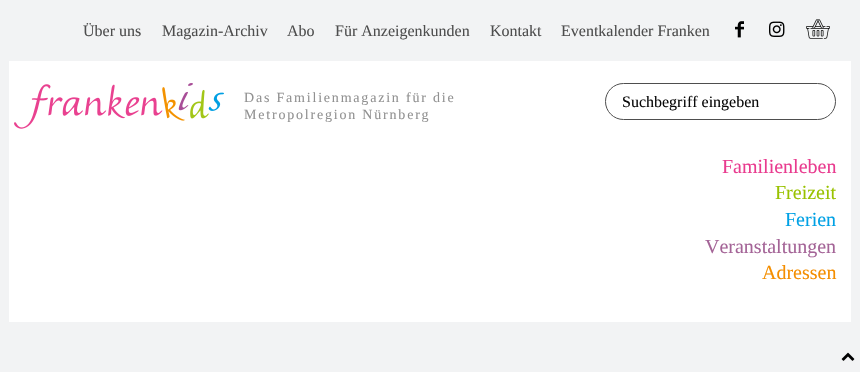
static SkFont makeFont(const char* family, int weight, float size, bool italic = false) {
  SkFontStyle style(weight, SkFontStyle::kNormal_Width,
    italic ? SkFontStyle::kItalic_Slant : SkFontStyle::kUpright_Slant);
  SkFont result(fontMgr->matchFamilyStyle(family, style), size);
  result.setSubpixel(true);
  return result;
}

static void text(SkCanvas* c, const char* s, float x, float y, const SkFont& font, SkColor color) {
  SkPaint ink(SkColor4f::FromColor(color));
  ink.setAntiAlias(true);
  c->drawString(s, x, y, font, ink);
}

static void spacedText(SkCanvas* c, const char* s, float x, float y, const SkFont& font, const SkPaint& ink, float letter, float word) {
  std::vector<SkGlyphID> glyphs(font.countText(s, strlen(s), SkTextEncoding::kUTF8));
  std::vector<float> xs(glyphs.size());
  font.textToGlyphs(s, strlen(s), SkTextEncoding::kUTF8, glyphs);
  font.getXPos(glyphs, xs, x);
  float extra = 0;
  for (size_t i = 0; i < glyphs.size(); i++) {
    xs[i] += extra;
    extra += letter + word * (glyphs[i] == font.unicharToGlyph(' '));
  }
  c->drawTextBlob(SkTextBlob::MakeFromPosHGlyphs(glyphs, xs, y, font), 0, 0, ink);
}

static void box(SkCanvas* c, float l, float t, float r, float b, SkColor color) {
  SkPaint ink(SkColor4f::FromColor(color));
  ink.setAntiAlias(true);
  c->drawRect(SkRect::MakeLTRB(l, t, r, b), ink);
}

static void picture(SkCanvas* c, const char* path, float l, float t, float r, float b) {
  auto image = SkImages::DeferredFromEncodedData(SkData::MakeFromFileName(path));
  c->drawImageRect(image, SkRect::MakeLTRB(l, t, r, b), SkSamplingOptions());
}

void draw(SkCanvas* c) {
  SkPaint paint;
  paint.setAntiAlias(true);
  c->clear(0xfff2f3f4);
  SkFont face1 = makeFont("Liberation Serif", 400, 16);
  text(c, "Über uns", 83, 36, face1, 0xff4e4e4e);
  text(c, "Magazin-Archiv", 162, 36, face1, 0xff4e4e4e);
  text(c, "Abo", 287, 36, face1, 0xff4e4e4e);
  text(c, "Für Anzeigenkunden", 335, 36, face1, 0xff4e4e4e);
  text(c, "Kontakt", 490, 36, face1, 0xff4e4e4e);
  text(c, "Eventkalender Franken", 561, 36, face1, 0xff4e4e4e);
  picture(c, "img_01.png", 735, 21, 744, 38);
  picture(c, "img_02.png", 769, 21, 785, 37);
  picture(c, "img_03.png", 806, 19, 830, 39);
  box(c, 9, 61, 851, 322, 0xffffffff);
  picture(c, "img_04.png", 14, 83, 224, 129);
  SkFont face2 = makeFont("Liberation Serif", 400, 14);
  paint.setColor(0xff919191);
  spacedText(c, "Das Familienmagazin für die", 244, 102, face2, paint, 1.8f, 0);
  spacedText(c, "Metropolregion Nürnberg", 244, 119, face2, paint, 1.8f, 0);
  paint.setStyle(SkPaint::kStroke_Style);
  paint.setStrokeWidth(1);
  paint.setColor(0xff4e4e4e);
  c->drawRoundRect(SkRect::MakeLTRB(605.5f, 83.5f, 835.5f, 119.5f), 18, 18, paint);
  text(c, "Suchbegriff eingeben", 622, 107, face1, 0xff0a0a0a);
  SkFont face3 = makeFont("Liberation Serif", 400, 20);
  text(c, "Familienleben", 722, 173, face3, 0xffe93b8f);
  text(c, "Freizeit", 775, 199, face3, 0xff99c200);
  text(c, "Ferien", 785, 226, face3, 0xff00a1e5);
  text(c, "Veranstaltungen", 705, 253, face3, 0xffa46497);
  text(c, "Adressen", 762, 279, face3, 0xfff48e00);
  picture(c, "img_05.png", 841, 352, 855, 361);
}
